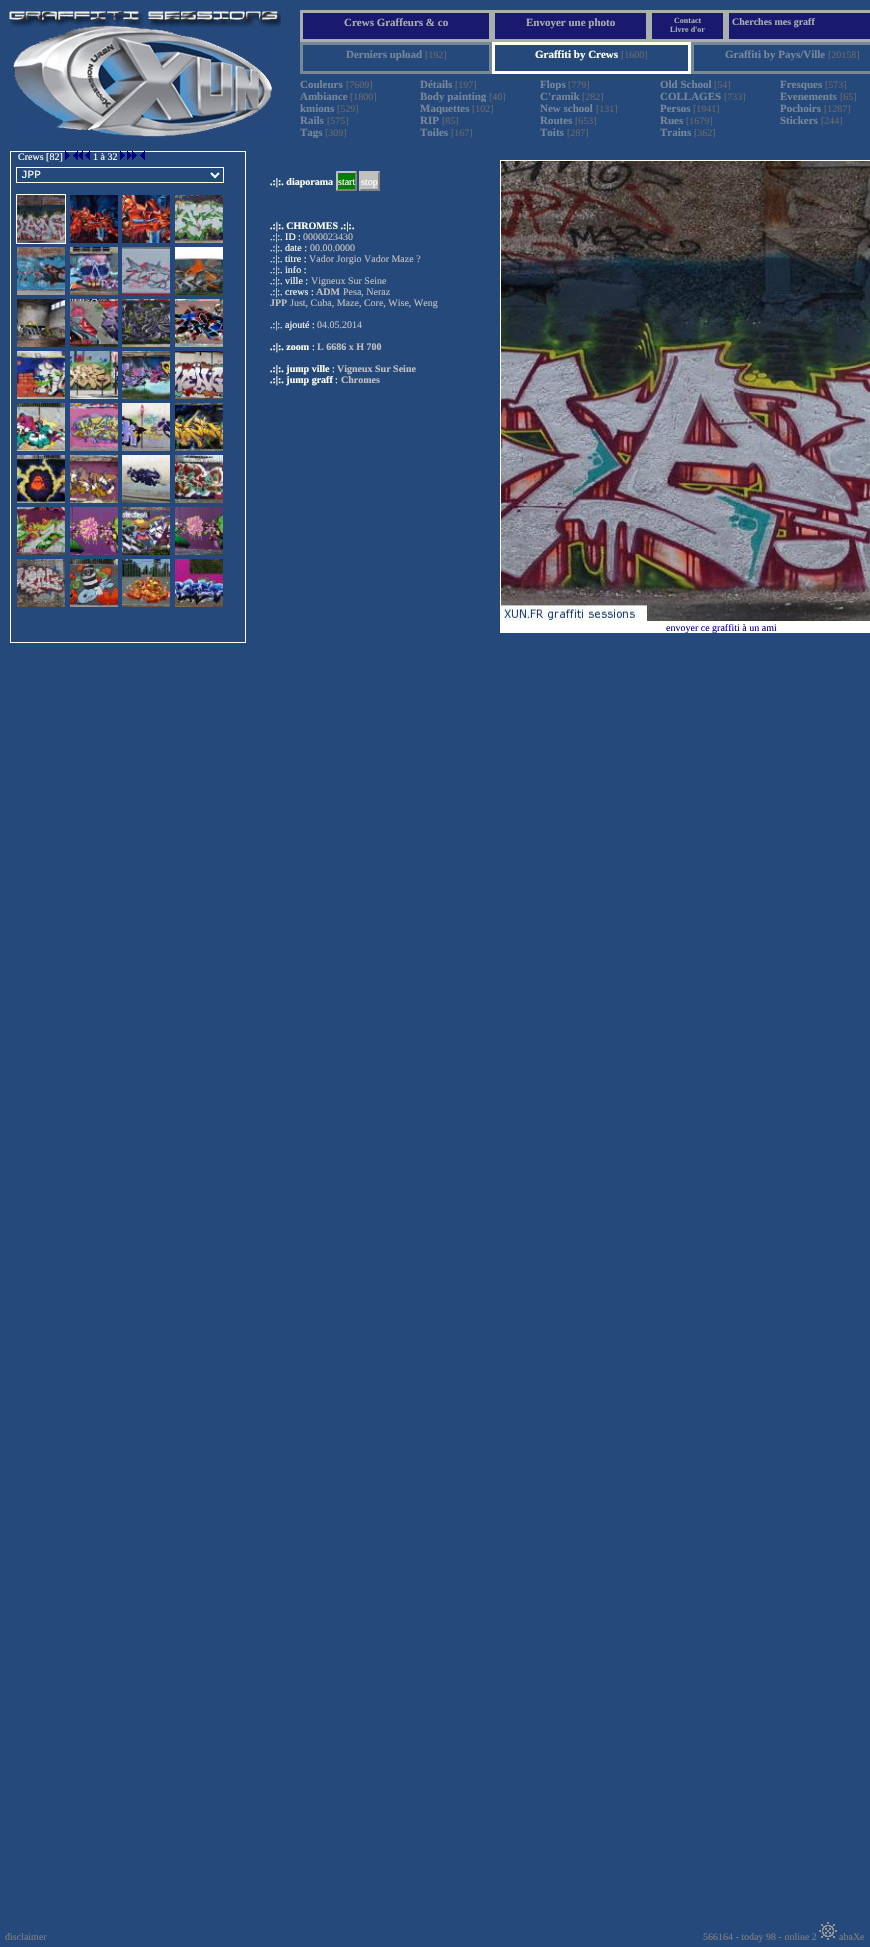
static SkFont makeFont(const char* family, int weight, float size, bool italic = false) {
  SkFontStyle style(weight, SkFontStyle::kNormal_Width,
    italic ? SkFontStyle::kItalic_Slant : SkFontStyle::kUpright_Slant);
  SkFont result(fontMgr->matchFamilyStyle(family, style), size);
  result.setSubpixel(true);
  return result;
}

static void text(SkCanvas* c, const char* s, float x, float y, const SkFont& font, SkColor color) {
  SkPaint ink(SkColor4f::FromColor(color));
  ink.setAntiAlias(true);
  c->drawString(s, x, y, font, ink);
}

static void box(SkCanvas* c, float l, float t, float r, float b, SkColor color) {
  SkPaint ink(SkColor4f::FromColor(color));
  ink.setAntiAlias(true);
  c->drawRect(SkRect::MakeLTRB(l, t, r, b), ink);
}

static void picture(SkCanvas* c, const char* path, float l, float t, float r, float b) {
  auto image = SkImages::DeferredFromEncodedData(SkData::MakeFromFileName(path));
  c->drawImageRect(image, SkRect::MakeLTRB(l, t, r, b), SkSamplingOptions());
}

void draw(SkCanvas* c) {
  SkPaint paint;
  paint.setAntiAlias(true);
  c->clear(0xff26497c);
  picture(c, "img_01.png", 5, 5, 281, 141);
  paint.setColor(0xff191970);
  c->drawRect(SkRect::MakeLTRB(301.5f, 11.5f, 490.5f, 40.5f), paint);
  paint.setStyle(SkPaint::kStroke_Style);
  paint.setStrokeWidth(3);
  paint.setColor(0xffa9afaf);
  c->drawRect(SkRect::MakeLTRB(301.5f, 11.5f, 490.5f, 40.5f), paint);
  SkFont face1 = makeFont("Liberation Serif", 700, 11);
  text(c, "Crews Graffeurs & co", 344, 26, face1, 0xffa9afaf);
  paint.setStyle(SkPaint::kFill_Style);
  paint.setColor(0xff191970);
  c->drawRect(SkRect::MakeLTRB(493.5f, 11.5f, 647.5f, 40.5f), paint);
  paint.setStyle(SkPaint::kStroke_Style);
  paint.setColor(0xffa9afaf);
  c->drawRect(SkRect::MakeLTRB(493.5f, 11.5f, 647.5f, 40.5f), paint);
  text(c, "Envoyer une photo", 526, 26, face1, 0xffa9afaf);
  paint.setStyle(SkPaint::kFill_Style);
  paint.setColor(0xff191970);
  c->drawRect(SkRect::MakeLTRB(650.5f, 11.5f, 724.5f, 40.5f), paint);
  paint.setStyle(SkPaint::kStroke_Style);
  paint.setColor(0xffa9afaf);
  c->drawRect(SkRect::MakeLTRB(650.5f, 11.5f, 724.5f, 40.5f), paint);
  SkFont face2 = makeFont("Liberation Serif", 700, 8);
  text(c, "Contact", 674, 23, face2, 0xffa9afaf);
  text(c, "Livre d'or", 670, 32, face2, 0xffa9afaf);
  paint.setStyle(SkPaint::kFill_Style);
  paint.setColor(0xff191970);
  c->drawRect(SkRect::MakeLTRB(727.5f, 11.5f, 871.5f, 40.5f), paint);
  paint.setStyle(SkPaint::kStroke_Style);
  paint.setColor(0xffa9afaf);
  c->drawRect(SkRect::MakeLTRB(727.5f, 11.5f, 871.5f, 40.5f), paint);
  SkFont face3 = makeFont("Liberation Serif", 700, 10);
  text(c, "Cherches mes graff", 732, 25, face3, 0xffa9afaf);
  paint.setColor(0xff778899);
  c->drawRect(SkRect::MakeLTRB(301.5f, 43.5f, 490.5f, 72.5f), paint);
  text(c, "Derniers upload", 346, 58, face1, 0xff778899);
  SkFont face4 = makeFont("Liberation Serif", 400, 10);
  text(c, "[192]", 425, 58, face4, 0xff6a6a6a);
  paint.setColor(0xfffffff0);
  c->drawRect(SkRect::MakeLTRB(493.5f, 43.5f, 689.5f, 72.5f), paint);
  text(c, "Graffiti by Crews", 535, 58, face1, 0xfffffff0);
  text(c, "[1600]", 621, 58, face4, 0xff6a6a6a);
  paint.setColor(0xff778899);
  c->drawRect(SkRect::MakeLTRB(692.5f, 43.5f, 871.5f, 72.5f), paint);
  text(c, "Graffiti by Pays/Ville", 725, 58, face1, 0xff778899);
  text(c, "[20158]", 828, 58, face4, 0xff6a6a6a);
  text(c, "Couleurs", 300, 88, face1, 0xff778899);
  text(c, "[7609]", 346, 88, face4, 0xff6a6a6a);
  text(c, "Détails", 420, 88, face1, 0xff778899);
  text(c, "[197]", 455, 88, face4, 0xff6a6a6a);
  c->save();
  c->clipRect(SkRect::MakeLTRB(540, 78, 660, 90));
  text(c, "Flops", 540, 88, face1, 0xff778899);
  c->restore();
  text(c, "[779]", 568, 88, face4, 0xff6a6a6a);
  text(c, "Old School", 660, 88, face1, 0xff778899);
  text(c, "[54]", 714, 88, face4, 0xff6a6a6a);
  c->save();
  c->clipRect(SkRect::MakeLTRB(780, 78, 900, 90));
  text(c, "Fresques", 780, 88, face1, 0xff778899);
  c->restore();
  text(c, "[573]", 825, 88, face4, 0xff6a6a6a);
  text(c, "Ambiance", 300, 100, face1, 0xff778899);
  text(c, "[1800]", 350, 100, face4, 0xff6a6a6a);
  c->save();
  c->clipRect(SkRect::MakeLTRB(420, 90, 540, 102));
  text(c, "Body painting", 420, 100, face1, 0xff778899);
  c->restore();
  text(c, "[40]", 489, 100, face4, 0xff6a6a6a);
  text(c, "C'ramik", 540, 100, face1, 0xff778899);
  text(c, "[282]", 582, 100, face4, 0xff6a6a6a);
  text(c, "COLLAGES", 660, 100, face1, 0xff778899);
  text(c, "[733]", 724, 100, face4, 0xff6a6a6a);
  text(c, "Evenements", 780, 100, face1, 0xff778899);
  text(c, "[65]", 840, 100, face4, 0xff6a6a6a);
  text(c, "kmions", 300, 112, face1, 0xff778899);
  text(c, "[529]", 337, 112, face4, 0xff6a6a6a);
  c->save();
  c->clipRect(SkRect::MakeLTRB(420, 102, 540, 114));
  text(c, "Maquettes", 420, 112, face1, 0xff778899);
  c->restore();
  text(c, "[102]", 472, 112, face4, 0xff6a6a6a);
  text(c, "New school", 540, 112, face1, 0xff778899);
  text(c, "[131]", 596, 112, face4, 0xff6a6a6a);
  text(c, "Persos", 660, 112, face1, 0xff778899);
  text(c, "[1941]", 693, 112, face4, 0xff6a6a6a);
  text(c, "Pochoirs", 780, 112, face1, 0xff778899);
  text(c, "[1287]", 824, 112, face4, 0xff6a6a6a);
  text(c, "Rails", 300, 124, face1, 0xff778899);
  text(c, "[575]", 327, 124, face4, 0xff6a6a6a);
  text(c, "RIP", 420, 124, face1, 0xff778899);
  text(c, "[85]", 442, 124, face4, 0xff6a6a6a);
  text(c, "Routes", 540, 124, face1, 0xff778899);
  text(c, "[653]", 575, 124, face4, 0xff6a6a6a);
  text(c, "Rues", 660, 124, face1, 0xff778899);
  text(c, "[1679]", 686, 124, face4, 0xff6a6a6a);
  text(c, "Stickers", 780, 124, face1, 0xff778899);
  text(c, "[244]", 821, 124, face4, 0xff6a6a6a);
  c->save();
  c->clipRect(SkRect::MakeLTRB(300, 126, 420, 138));
  text(c, "Tags", 300, 136, face1, 0xff778899);
  c->restore();
  text(c, "[309]", 325, 136, face4, 0xff6a6a6a);
  text(c, "Toiles", 420, 136, face1, 0xff778899);
  text(c, "[167]", 451, 136, face4, 0xff6a6a6a);
  text(c, "Toits", 540, 136, face1, 0xff778899);
  text(c, "[287]", 567, 136, face4, 0xff6a6a6a);
  text(c, "Trains", 660, 136, face1, 0xff778899);
  text(c, "[362]", 694, 136, face4, 0xff6a6a6a);
  paint.setStrokeWidth(1);
  paint.setColor(0xfffffff0);
  c->drawRect(SkRect::MakeLTRB(10.5f, 151.5f, 245.5f, 642.5f), paint);
  text(c, "Crews [82]", 18, 160, face4, 0xfffffff0);
  picture(c, "img_02.png", 65, 151, 70, 160);
  picture(c, "img_03.png", 73, 151, 78, 160);
  picture(c, "img_03.png", 78, 151, 83, 160);
  picture(c, "img_03.png", 85, 151, 90, 160);
  text(c, "1 à 32", 93, 160, face4, 0xfffffff0);
  picture(c, "img_02.png", 120, 151, 125, 160);
  picture(c, "img_02.png", 127, 151, 132, 160);
  picture(c, "img_02.png", 132, 151, 137, 160);
  picture(c, "img_03.png", 140, 151, 145, 160);
  c->drawRect(SkRect::MakeLTRB(16.5f, 167.5f, 223.5f, 182.5f), paint);
  paint.setStrokeWidth(2);
  c->drawPath(SkPathBuilder().moveTo(211, 173).lineTo(215, 177).lineTo(219, 173).detach(), paint);
  SkFont face5 = makeFont("Liberation Mono", 400, 11);
  text(c, "JPP", 21, 178, face5, 0xfffffff0);
  paint.setStrokeWidth(1);
  c->drawRect(SkRect::MakeLTRB(16.5f, 194.5f, 65.5f, 243.5f), paint);
  picture(c, "img_04.png", 17, 195, 65, 243);
  picture(c, "img_05.png", 70, 195, 118, 243);
  picture(c, "img_06.png", 122, 195, 170, 243);
  picture(c, "img_07.png", 175, 195, 223, 243);
  picture(c, "img_08.png", 17, 247, 65, 295);
  picture(c, "img_09.png", 70, 247, 118, 295);
  picture(c, "img_10.png", 122, 247, 170, 295);
  picture(c, "img_11.png", 175, 247, 223, 295);
  picture(c, "img_12.png", 17, 299, 65, 347);
  picture(c, "img_13.png", 70, 299, 118, 347);
  picture(c, "img_14.png", 122, 299, 170, 347);
  picture(c, "img_15.png", 175, 299, 223, 347);
  picture(c, "img_16.png", 17, 351, 65, 399);
  picture(c, "img_17.png", 70, 351, 118, 399);
  picture(c, "img_18.png", 122, 351, 170, 399);
  picture(c, "img_19.png", 175, 351, 223, 399);
  picture(c, "img_20.png", 17, 403, 65, 451);
  picture(c, "img_21.png", 70, 403, 118, 451);
  picture(c, "img_22.png", 122, 403, 170, 451);
  picture(c, "img_23.png", 175, 403, 223, 451);
  picture(c, "img_24.png", 17, 455, 65, 503);
  picture(c, "img_25.png", 70, 455, 118, 503);
  picture(c, "img_26.png", 122, 455, 170, 503);
  picture(c, "img_27.png", 175, 455, 223, 503);
  picture(c, "img_28.png", 17, 507, 65, 555);
  picture(c, "img_29.png", 70, 507, 118, 555);
  picture(c, "img_30.png", 122, 507, 170, 555);
  picture(c, "img_31.png", 175, 507, 223, 555);
  picture(c, "img_32.png", 17, 559, 65, 607);
  picture(c, "img_33.png", 70, 559, 118, 607);
  picture(c, "img_34.png", 122, 559, 170, 607);
  picture(c, "img_35.png", 175, 559, 223, 607);
  text(c, ".:|:. diaporama", 270, 185, face3, 0xfffffff0);
  box(c, 336, 171, 357, 191, 0xff008000);
  paint.setStyle(SkPaint::kFill_Style);
  paint.setColor(0xffc0c0c0);
  c->drawPath(SkPathBuilder().moveTo(336, 171).lineTo(357, 171).lineTo(355, 173).lineTo(338, 173).close().detach(), paint);
  paint.setColor(0xff808080);
  c->drawPath(SkPathBuilder().moveTo(357, 171).lineTo(357, 191).lineTo(355, 189).lineTo(355, 173).close().detach(), paint);
  c->drawPath(SkPathBuilder().moveTo(357, 191).lineTo(336, 191).lineTo(338, 189).lineTo(355, 189).close().detach(), paint);
  paint.setColor(0xffc0c0c0);
  c->drawPath(SkPathBuilder().moveTo(336, 191).lineTo(336, 171).lineTo(338, 173).lineTo(338, 189).close().detach(), paint);
  text(c, "start", 338, 185, face4, 0xffffffff);
  box(c, 359, 171, 380, 191, 0xffc0c0c0);
  paint.setColor(0xff808080);
  c->drawPath(SkPathBuilder().moveTo(380, 171).lineTo(380, 191).lineTo(378, 189).lineTo(378, 173).close().detach(), paint);
  c->drawPath(SkPathBuilder().moveTo(380, 191).lineTo(359, 191).lineTo(361, 189).lineTo(378, 189).close().detach(), paint);
  paint.setColor(0xffc0c0c0);
  c->drawPath(SkPathBuilder().moveTo(359, 191).lineTo(359, 171).lineTo(361, 173).lineTo(361, 189).close().detach(), paint);
  text(c, "stop", 361, 185, face4, 0xffffffff);
  paint.setStyle(SkPaint::kStroke_Style);
  paint.setColor(0xfffffff0);
  c->drawRect(SkRect::MakeLTRB(500.5f, 160.5f, 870.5f, 621.5f), paint);
  picture(c, "img_36.png", 501, 161, 870, 621);
  text(c, ".:|:. CHROMES .:|:.", 270, 229, face3, 0xfffffff0);
  text(c, ".:|:. ID :", 270, 240, face4, 0xfffffff0);
  text(c, "0000023430", 303, 240, face4, 0xffc0c0c0);
  text(c, ".:|:. date :", 270, 251, face4, 0xfffffff0);
  text(c, "00.00.0000", 310, 251, face4, 0xffc0c0c0);
  text(c, ".:|:. titre :", 270, 262, face4, 0xfffffff0);
  text(c, "Vador Jorgio Vador Maze ?", 309, 262, face4, 0xffc0c0c0);
  text(c, ".:|:. info :", 270, 273, face4, 0xfffffff0);
  text(c, ".:|:. ville :", 270, 284, face4, 0xfffffff0);
  text(c, "Vigneux Sur Seine", 311, 284, face4, 0xffc0c0c0);
  text(c, ".:|:. crews :", 270, 295, face4, 0xfffffff0);
  text(c, "ADM", 316, 295, face3, 0xffc0c0c0);
  text(c, "Pesa, Neraz", 343, 295, face4, 0xffc0c0c0);
  text(c, "JPP", 270, 306, face3, 0xffc0c0c0);
  text(c, "Just, Cuba, Maze, Core, Wise, Weng", 290, 306, face4, 0xffc0c0c0);
  text(c, ".:|:. ajouté :", 270, 328, face4, 0xfffffff0);
  text(c, "04.05.2014", 317, 328, face4, 0xffc0c0c0);
  text(c, ".:|:. zoom", 270, 350, face3, 0xfffffff0);
  text(c, ":", 312, 350, face4, 0xfffffff0);
  text(c, "L 6686 x H 700", 317, 350, face3, 0xffc0c0c0);
  text(c, ".:|:. jump ville", 270, 372, face3, 0xfffffff0);
  text(c, ":", 332, 372, face4, 0xfffffff0);
  text(c, "Vigneux Sur Seine", 337, 372, face3, 0xffc0c0c0);
  text(c, ".:|:. jump graff", 270, 383, face3, 0xfffffff0);
  text(c, ":", 335, 383, face4, 0xfffffff0);
  text(c, "Chromes", 341, 383, face3, 0xffc0c0c0);
  box(c, 500, 622, 870, 633, 0xffffffff);
  text(c, "envoyer ce graffiti à un ami", 666, 631, face4, 0xff000080);
  text(c, "disclaimer", 5, 1940, face4, 0xff808080);
  text(c, "566164 - today 98 - online 2", 703, 1940, face4, 0xff808080);
  picture(c, "img_37.png", 819, 1922, 837, 1940);
  text(c, "abaXe", 839, 1940, face4, 0xff808080);
}
